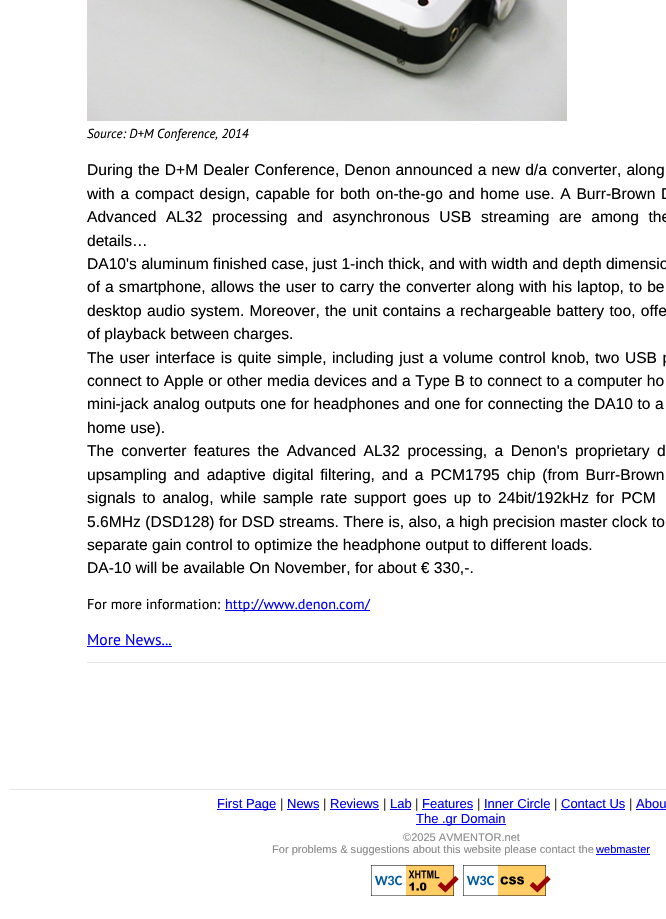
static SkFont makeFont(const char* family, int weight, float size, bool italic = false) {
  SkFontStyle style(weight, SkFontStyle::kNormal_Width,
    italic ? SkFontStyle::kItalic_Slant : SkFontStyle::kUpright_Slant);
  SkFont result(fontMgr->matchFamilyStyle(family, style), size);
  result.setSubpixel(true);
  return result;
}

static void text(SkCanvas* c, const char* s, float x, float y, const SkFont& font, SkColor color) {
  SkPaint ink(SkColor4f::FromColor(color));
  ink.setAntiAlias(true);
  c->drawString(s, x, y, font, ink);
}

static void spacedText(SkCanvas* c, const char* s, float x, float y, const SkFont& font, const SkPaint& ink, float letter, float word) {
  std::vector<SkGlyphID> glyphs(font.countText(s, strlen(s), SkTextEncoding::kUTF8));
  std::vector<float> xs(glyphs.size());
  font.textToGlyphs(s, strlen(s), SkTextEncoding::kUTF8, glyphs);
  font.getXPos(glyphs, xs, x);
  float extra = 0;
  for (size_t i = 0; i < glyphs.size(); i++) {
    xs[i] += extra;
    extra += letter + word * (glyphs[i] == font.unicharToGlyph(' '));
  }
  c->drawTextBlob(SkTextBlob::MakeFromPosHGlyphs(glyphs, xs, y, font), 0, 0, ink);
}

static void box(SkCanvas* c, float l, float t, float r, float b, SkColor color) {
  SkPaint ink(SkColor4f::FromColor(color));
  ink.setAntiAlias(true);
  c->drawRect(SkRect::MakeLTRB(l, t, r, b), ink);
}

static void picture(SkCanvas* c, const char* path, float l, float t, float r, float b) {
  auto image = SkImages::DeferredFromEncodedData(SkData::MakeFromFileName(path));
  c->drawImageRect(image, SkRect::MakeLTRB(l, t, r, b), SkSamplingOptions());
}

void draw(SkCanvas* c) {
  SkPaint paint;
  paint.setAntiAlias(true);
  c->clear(0xffffffff);
  picture(c, "img_01.png", 87, 0, 567, 121);
  SkFont face1 = makeFont("PT Sans", 400, 13, true);
  text(c, "Source: D+M Conference, 2014", 87, 138, face1, 0xff000000);
  SkFont face2 = makeFont("Liberation Sans", 400, 15.6f);
  paint.setColor(0xff000000);
  spacedText(c, "During the D+M Dealer Conference, Denon announced a new d/a converter, along", 87, 175, face2, paint, 0, 0.75f);
  spacedText(c, "with a compact design, capable for both on-the-go and home use. A Burr-Brown D", 87, 199, face2, paint, 0, 1.4f);
  spacedText(c, "Advanced AL32 processing and asynchronous USB streaming are among the", 87, 222, face2, paint, 0, 5.25f);
  text(c, "details…", 87, 246, face2, 0xff000000);
  text(c, "DA10's aluminum finished case, just 1-inch thick, and with width and depth dimensio", 87, 269, face2, 0xff000000);
  spacedText(c, "of a smartphone, allows the user to carry the converter along with his laptop, to be", 87, 292, face2, paint, 0, 0.75f);
  spacedText(c, "desktop audio system. Moreover, the unit contains a rechargeable battery too, offe", 87, 316, face2, paint, 0, 1);
  text(c, "of playback between charges.", 87, 339, face2, 0xff000000);
  spacedText(c, "The user interface is quite simple, including just a", 87, 363, face2, paint, 0, 1.25f);
  spacedText(c, "volume control knob, two USB p", 443, 363, face2, paint, 0, 1.25f);
  spacedText(c, "connect to Apple or other media devices and a Type B to connect to a computer ho", 87, 386, face2, paint, 0, 0.25f);
  spacedText(c, "mini-jack analog outputs one for headphones and one for connecting the DA10 to a", 87, 409, face2, paint, 0, 0.2f);
  text(c, "home use).", 87, 433, face2, 0xff000000);
  spacedText(c, "The converter features the Advanced AL32 processing, a Denon's proprietary d", 87, 456, face2, paint, 0, 3.1f);
  spacedText(c, "upsampling and adaptive digital filtering, and a PCM1795 chip (from Burr-Brown", 87, 480, face2, paint, 0, 2.6f);
  spacedText(c, "signals to analog, while sample rate support goes up to 24bit/192kHz for PCM", 87, 503, face2, paint, 0, 2.6f);
  spacedText(c, "5.6MHz (DSD128) for DSD streams. There is, also, a high precision master clock to", 87, 527, face2, paint, 0, 0.1f);
  text(c, "separate gain control to optimize the headphone output to different loads.", 87, 550, face2, 0xff000000);
  text(c, "DA-10 will be available On November, for about € 330,-.", 87, 573, face2, 0xff000000);
  SkFont face3 = makeFont("PT Sans", 400, 14.25f);
  text(c, "For more information:", 87, 609, face3, 0xff000000);
  box(c, 225, 610, 370, 611, 0xff0000ee);
  text(c, "http://www.denon.com/", 225, 609, face3, 0xff0000ee);
  SkFont face4 = makeFont("PT Sans", 400, 15.6f);
  text(c, "More News...", 87, 645, face4, 0xff0000ee);
  box(c, 87, 646, 172, 647, 0xff0000ee);
  box(c, 87, 662, 666, 663, 0xffe6e6e6);
  box(c, 10, 789, 666, 790, 0xffe6e6e6);
  box(c, 217, 809, 276, 810, 0xff0000ee);
  SkFont face5 = makeFont("Liberation Sans", 400, 13);
  text(c, "First Page", 217, 808, face5, 0xff0000ee);
  text(c, "|", 280, 808, face5, 0xff333333);
  text(c, "News", 287, 808, face5, 0xff0000ee);
  box(c, 287, 809, 319, 810, 0xff0000ee);
  text(c, "|", 323, 808, face5, 0xff333333);
  text(c, "Reviews", 330, 808, face5, 0xff0000ee);
  box(c, 330, 809, 379, 810, 0xff0000ee);
  text(c, "|", 383, 808, face5, 0xff333333);
  text(c, "Lab", 390, 808, face5, 0xff0000ee);
  box(c, 390, 809, 411, 810, 0xff0000ee);
  text(c, "|", 415, 808, face5, 0xff333333);
  text(c, "Features", 422, 808, face5, 0xff0000ee);
  box(c, 422, 809, 473, 810, 0xff0000ee);
  text(c, "|", 477, 808, face5, 0xff333333);
  text(c, "Inner Circle", 484, 808, face5, 0xff0000ee);
  box(c, 484, 809, 550, 810, 0xff0000ee);
  text(c, "|", 554, 808, face5, 0xff333333);
  text(c, "Contact Us", 561, 808, face5, 0xff0000ee);
  box(c, 561, 809, 625, 810, 0xff0000ee);
  text(c, "|", 629, 808, face5, 0xff333333);
  text(c, "Abou", 636, 808, face5, 0xff0000ee);
  box(c, 636, 809, 666, 810, 0xff0000ee);
  box(c, 416, 824, 506, 825, 0xff0000ee);
  text(c, "The .gr Domain", 416, 823, face5, 0xff0000ee);
  SkFont face6 = makeFont("Liberation Sans", 400, 11.05f);
  text(c, "©2025 AVMENTOR.net", 403, 841, face6, 0xff888888);
  text(c, "For problems & suggestions about this website please contact the", 272, 853, face6, 0xff888888);
  text(c, "webmaster", 596, 853, face6, 0xff0000ee);
  box(c, 596, 854, 650, 855, 0xff0000ee);
  picture(c, "img_02.png", 371, 865, 459, 896);
  picture(c, "img_03.png", 463, 865, 551, 896);
}
